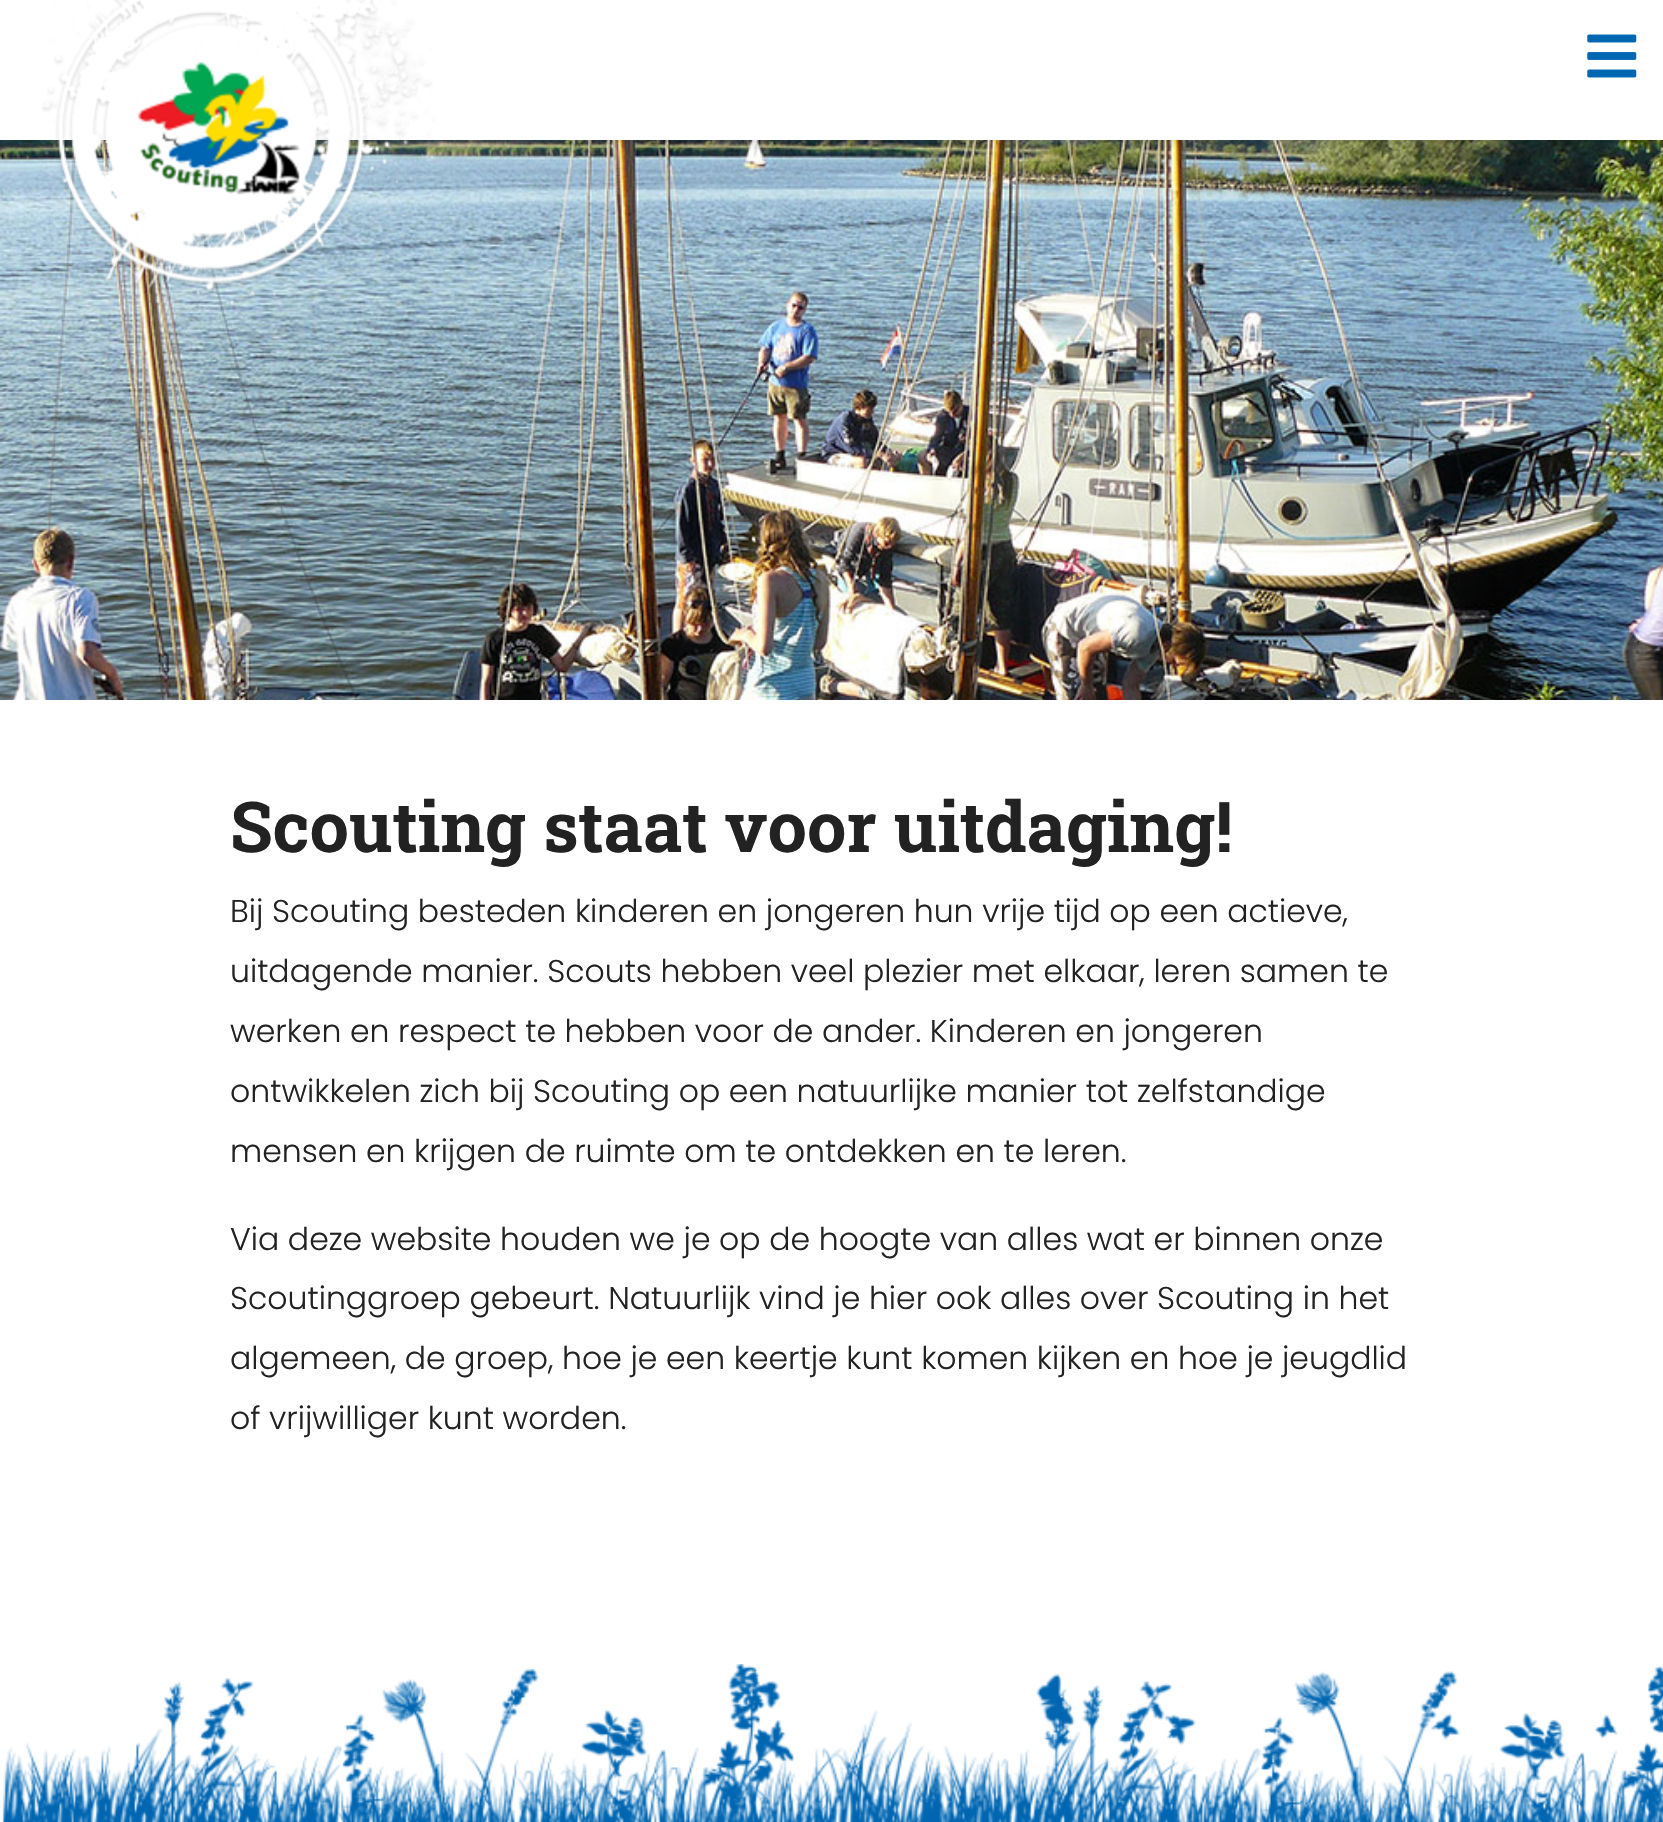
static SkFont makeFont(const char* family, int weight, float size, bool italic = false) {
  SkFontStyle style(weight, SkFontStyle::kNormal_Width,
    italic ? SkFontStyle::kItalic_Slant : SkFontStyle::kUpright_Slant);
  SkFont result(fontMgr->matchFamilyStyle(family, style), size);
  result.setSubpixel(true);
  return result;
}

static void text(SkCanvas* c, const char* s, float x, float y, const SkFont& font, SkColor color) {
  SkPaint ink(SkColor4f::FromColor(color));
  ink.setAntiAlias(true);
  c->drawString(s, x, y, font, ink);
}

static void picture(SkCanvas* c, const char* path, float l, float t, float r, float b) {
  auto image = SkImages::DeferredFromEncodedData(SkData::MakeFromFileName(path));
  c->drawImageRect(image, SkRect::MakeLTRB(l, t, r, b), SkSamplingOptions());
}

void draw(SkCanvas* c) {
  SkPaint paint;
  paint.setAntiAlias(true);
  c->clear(0xffffffff);
  picture(c, "img_04.png", 0, 140, 1663, 700);
  c->save();
  c->clipRect(SkRect::MakeLTRB(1, 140, 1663, 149));
  paint.setColor(0x80000000);
  paint.setMaskFilter(SkMaskFilter::MakeBlur(kNormal_SkBlurStyle, 9));
  c->drawRect(SkRect::MakeLTRB(9, 11, 1656, 133), paint);
  paint.setMaskFilter(nullptr);
  c->restore();
  picture(c, "img_01.png", 42, 0, 436, 306);
  picture(c, "img_02.png", 137, 62, 300, 195);
  picture(c, "img_03.png", 1587, 34, 1637, 78);
  SkFont face1 = makeFont("Roboto Slab", 700, 70);
  text(c, "Scouting staat voor uitdaging!", 230, 852, face1, 0xff222222);
  SkFont face2 = makeFont("Poppins", 300, 31.5f);
  text(c, "Bij Scouting besteden kinderen en jongeren hun vrije tijd op een actieve,", 230, 922, face2, 0xff222222);
  text(c, "uitdagende manier. Scouts hebben veel plezier met elkaar, leren samen te", 230, 982, face2, 0xff222222);
  text(c, "werken en respect te hebben voor de ander. Kinderen en jongeren", 230, 1042, face2, 0xff222222);
  text(c, "ontwikkelen zich bij Scouting op een natuurlijke manier tot zelfstandige", 230, 1102, face2, 0xff222222);
  text(c, "mensen en krijgen de ruimte om te ontdekken en te leren.", 230, 1162, face2, 0xff222222);
  text(c, "Via deze website houden we je op de hoogte van alles wat er binnen onze", 230, 1250, face2, 0xff222222);
  text(c, "Scoutinggroep gebeurt. Natuurlijk vind je hier ook alles over Scouting in het", 230, 1309, face2, 0xff222222);
  text(c, "algemeen, de groep, hoe je een keertje kunt komen kijken en hoe je jeugdlid", 230, 1369, face2, 0xff222222);
  text(c, "of vrijwilliger kunt worden.", 230, 1429, face2, 0xff222222);
  picture(c, "img_05.png", 2, 1664, 1663, 1822);
}
